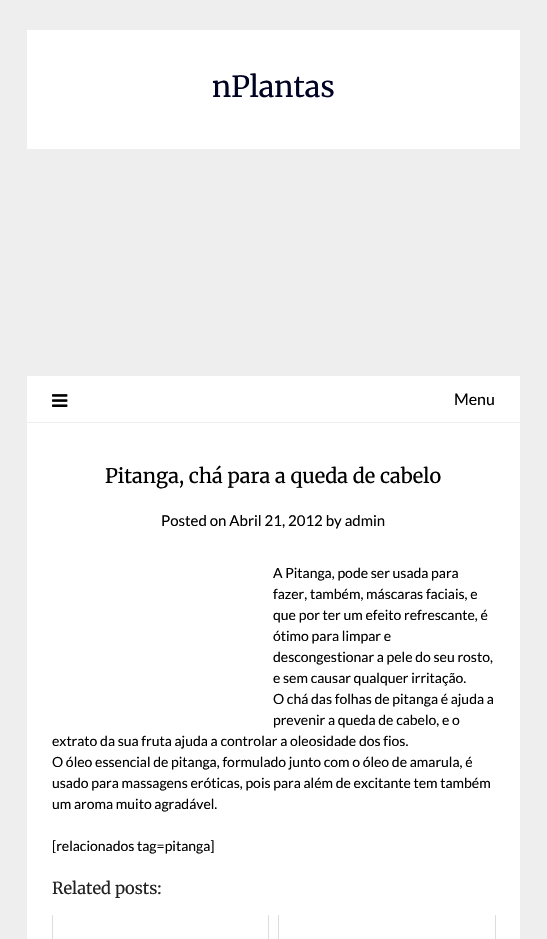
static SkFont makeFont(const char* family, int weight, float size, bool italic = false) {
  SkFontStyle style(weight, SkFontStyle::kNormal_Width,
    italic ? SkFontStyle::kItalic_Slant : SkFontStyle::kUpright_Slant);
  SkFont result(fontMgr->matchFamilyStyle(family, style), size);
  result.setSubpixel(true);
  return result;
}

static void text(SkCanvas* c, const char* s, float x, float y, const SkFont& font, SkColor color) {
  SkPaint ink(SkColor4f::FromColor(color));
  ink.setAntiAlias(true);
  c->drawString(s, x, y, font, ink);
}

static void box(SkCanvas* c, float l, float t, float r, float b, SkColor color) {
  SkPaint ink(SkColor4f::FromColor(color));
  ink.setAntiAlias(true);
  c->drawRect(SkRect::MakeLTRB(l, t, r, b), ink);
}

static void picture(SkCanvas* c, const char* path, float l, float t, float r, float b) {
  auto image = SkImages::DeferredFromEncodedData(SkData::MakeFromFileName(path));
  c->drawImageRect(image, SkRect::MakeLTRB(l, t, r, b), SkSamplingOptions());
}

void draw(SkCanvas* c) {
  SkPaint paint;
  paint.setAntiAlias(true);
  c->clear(0xffeeeeee);
  box(c, 27, 30, 520, 149, 0xffffffff);
  SkFont face1 = makeFont("Merriweather", 400, 29);
  text(c, "nPlantas", 212, 97, face1, 0xff000222);
  box(c, 27, 376, 520, 422, 0xffffffff);
  picture(c, "img_01.png", 52, 394, 68, 407);
  SkFont face2 = makeFont("Lato", 400, 16);
  text(c, "Menu", 454, 405, face2, 0xff000000);
  box(c, 27, 423, 520, 939, 0xffffffff);
  SkFont face3 = makeFont("Merriweather", 400, 20);
  text(c, "Pitanga, chá para a queda de cabelo", 105, 483, face3, 0xff000000);
  SkFont face4 = makeFont("Lato", 400, 15);
  text(c, "Posted on Abril 21, 2012 by admin", 161, 526, face4, 0xff000000);
  SkFont face5 = makeFont("Lato", 400, 14);
  text(c, "A Pitanga, pode ser usada para", 273, 578, face5, 0xff000000);
  text(c, "fazer, também, máscaras faciais, e", 273, 599, face5, 0xff000000);
  text(c, "que por ter um efeito refrescante, é", 273, 620, face5, 0xff000000);
  text(c, "ótimo para limpar e", 273, 641, face5, 0xff000000);
  text(c, "descongestionar a pele do seu rosto,", 273, 662, face5, 0xff000000);
  text(c, "e sem causar qualquer irritação.", 273, 683, face5, 0xff000000);
  text(c, "O chá das folhas de pitanga é ajuda a", 273, 704, face5, 0xff000000);
  text(c, "prevenir a queda de cabelo, e o", 273, 725, face5, 0xff000000);
  text(c, "extrato da sua fruta ajuda a controlar a oleosidade dos fios.", 52, 746, face5, 0xff000000);
  text(c, "O óleo essencial de pitanga, formulado junto com o óleo de amarula, é", 52, 767, face5, 0xff000000);
  text(c, "usado para massagens eróticas, pois para além de excitante tem também", 52, 788, face5, 0xff000000);
  text(c, "um aroma muito agradável.", 52, 809, face5, 0xff000000);
  text(c, "[relacionados tag=pitanga]", 52, 851, face5, 0xff000000);
  SkFont face6 = makeFont("Merriweather", 400, 16.5f);
  text(c, "Related posts:", 52, 894, face6, 0xff222222);
  box(c, 268, 915, 269, 939, 0xffdddddd);
  box(c, 52, 915, 53, 939, 0xffdddddd);
  box(c, 495, 915, 496, 939, 0xffdddddd);
  box(c, 278, 915, 279, 939, 0xffdddddd);
}
